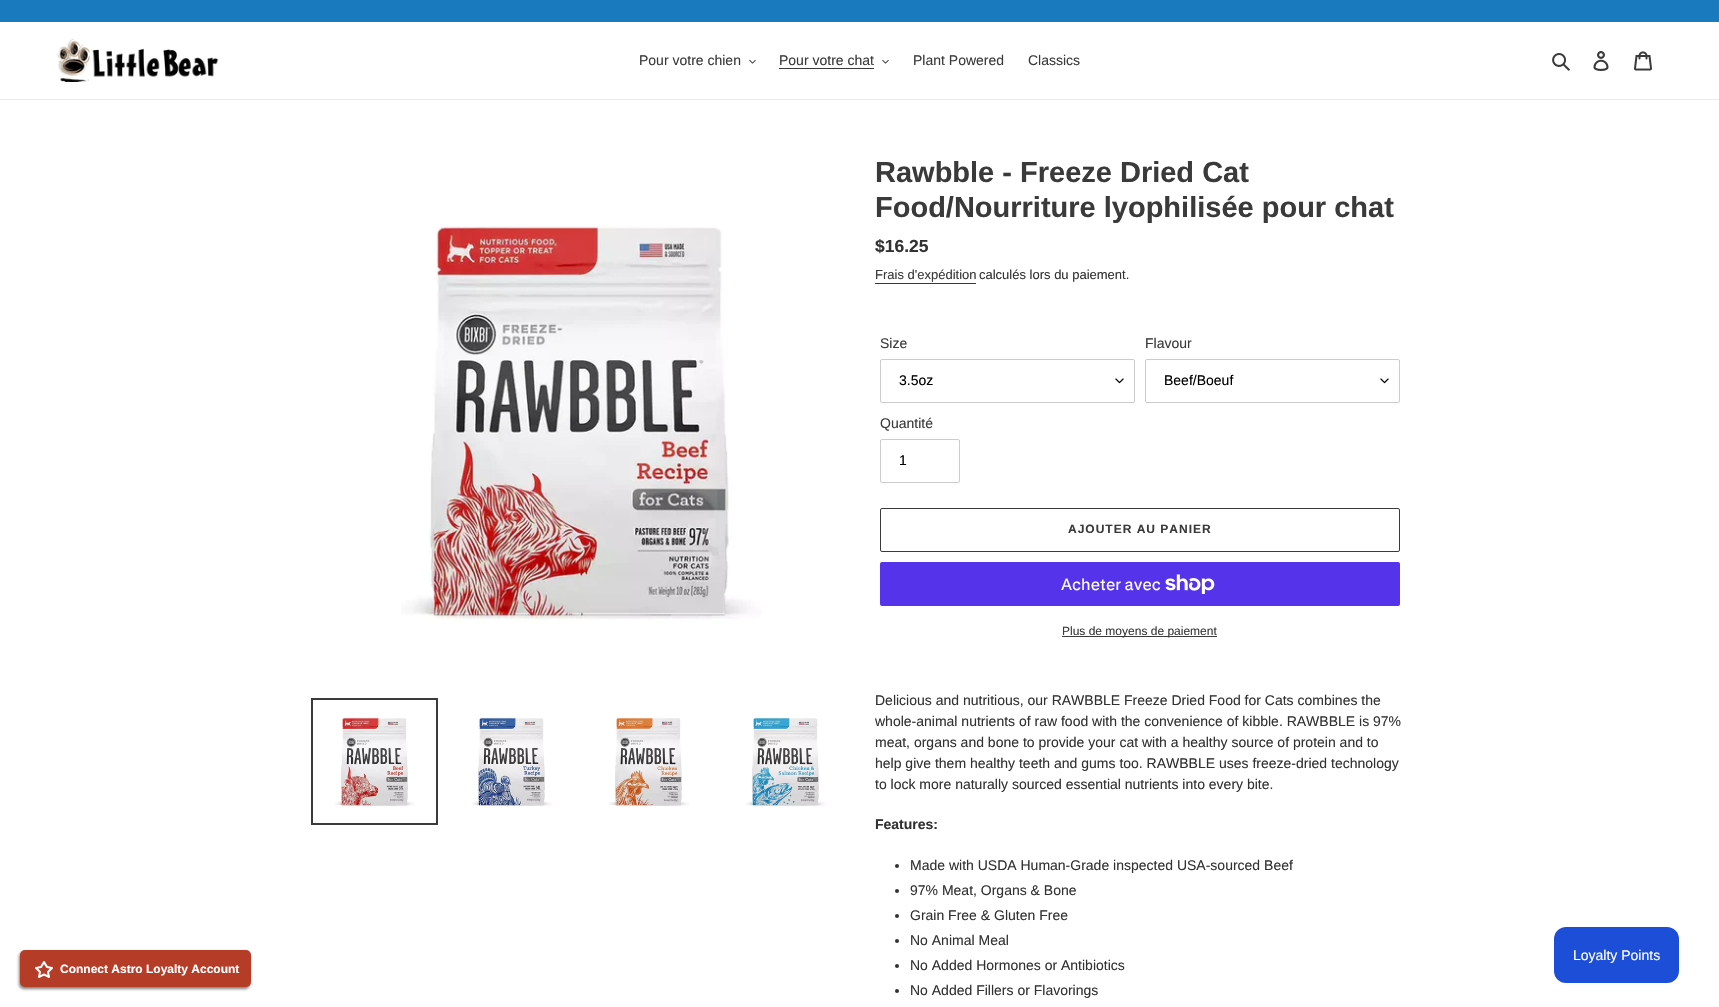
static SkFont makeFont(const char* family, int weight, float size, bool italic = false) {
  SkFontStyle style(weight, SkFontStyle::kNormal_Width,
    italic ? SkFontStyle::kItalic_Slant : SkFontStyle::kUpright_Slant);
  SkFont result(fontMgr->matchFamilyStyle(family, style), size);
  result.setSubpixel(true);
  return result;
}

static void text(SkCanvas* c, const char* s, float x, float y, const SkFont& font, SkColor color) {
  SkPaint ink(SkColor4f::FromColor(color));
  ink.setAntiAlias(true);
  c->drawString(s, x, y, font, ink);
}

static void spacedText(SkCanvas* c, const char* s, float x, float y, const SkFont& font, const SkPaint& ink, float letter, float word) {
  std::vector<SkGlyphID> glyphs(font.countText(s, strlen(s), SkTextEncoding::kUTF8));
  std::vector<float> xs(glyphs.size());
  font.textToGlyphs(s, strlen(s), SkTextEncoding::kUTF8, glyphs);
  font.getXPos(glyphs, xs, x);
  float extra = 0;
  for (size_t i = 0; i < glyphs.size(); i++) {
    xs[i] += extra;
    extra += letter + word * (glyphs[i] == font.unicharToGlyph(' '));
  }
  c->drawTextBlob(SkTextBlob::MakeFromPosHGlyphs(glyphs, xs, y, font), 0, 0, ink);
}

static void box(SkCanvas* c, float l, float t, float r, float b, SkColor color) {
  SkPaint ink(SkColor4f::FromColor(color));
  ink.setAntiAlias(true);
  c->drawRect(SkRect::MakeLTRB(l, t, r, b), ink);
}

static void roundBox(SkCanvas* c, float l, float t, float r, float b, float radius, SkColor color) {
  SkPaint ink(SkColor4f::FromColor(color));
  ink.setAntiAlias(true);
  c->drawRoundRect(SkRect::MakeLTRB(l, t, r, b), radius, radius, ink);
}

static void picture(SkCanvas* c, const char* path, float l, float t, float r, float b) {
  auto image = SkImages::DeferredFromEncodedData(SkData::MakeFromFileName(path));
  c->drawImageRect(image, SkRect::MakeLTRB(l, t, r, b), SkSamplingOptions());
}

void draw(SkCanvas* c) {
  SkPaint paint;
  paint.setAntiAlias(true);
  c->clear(0xffffffff);
  box(c, 0, 0, 1719, 22, 0xff197bbd);
  box(c, 0, 99, 1719, 100, 0xffebebeb);
  picture(c, "img_01.png", 57, 39, 219, 82);
  SkFont face1 = makeFont("Liberation Sans", 400, 14);
  text(c, "Pour votre chien", 639, 65, face1, 0xff3a3a3a);
  picture(c, "img_02.png", 749, 59, 756, 64);
  text(c, "Pour votre chat", 779, 65, face1, 0xff3a3a3a);
  box(c, 779, 68, 874, 69, 0xff3a3a3a);
  picture(c, "img_02.png", 882, 59, 889, 64);
  text(c, "Plant Powered", 913, 65, face1, 0xff3a3a3a);
  text(c, "Classics", 1028, 65, face1, 0xff3a3a3a);
  picture(c, "img_03.png", 1552, 53, 1570, 71);
  picture(c, "img_04.png", 1593, 51, 1609, 71);
  picture(c, "img_05.png", 1634, 51, 1652, 71);
  picture(c, "img_06.png", 401, 225, 762, 623);
  paint.setStyle(SkPaint::kStroke_Style);
  paint.setStrokeWidth(2);
  paint.setColor(0xff3a3a3a);
  c->drawRect(SkRect::MakeLTRB(312, 699, 437, 824), paint);
  picture(c, "img_07.png", 334, 717, 415, 807);
  picture(c, "img_08.png", 472, 717, 552, 806);
  picture(c, "img_09.png", 608, 717, 690, 807);
  picture(c, "img_10.png", 745, 716, 827, 807);
  SkFont face2 = makeFont("Liberation Sans", 700, 29);
  text(c, "Rawbble - Freeze Dried Cat", 875, 182, face2, 0xff3a3a3a);
  text(c, "Food/Nourriture lyophilisée pour chat", 875, 217, face2, 0xff3a3a3a);
  SkFont face3 = makeFont("Liberation Sans", 700, 17.5f);
  text(c, "$16.25", 875, 252, face3, 0xff333232);
  SkFont face4 = makeFont("Liberation Sans", 400, 13);
  text(c, "Frais d'expédition", 875, 279, face4, 0xff3a3a3a);
  box(c, 875, 283, 976, 284, 0xff3a3a3a);
  text(c, "calculés lors du paiement.", 979, 279, face4, 0xff333232);
  text(c, "Size", 880, 348, face1, 0xff3a3a3a);
  picture(c, "img_11.png", 1115, 378, 1124, 384);
  paint.setStrokeWidth(1);
  paint.setColor(0xffcccccc);
  c->drawRoundRect(SkRect::MakeLTRB(880.5f, 359.5f, 1134.5f, 402.5f), 1.5f, 1.5f, paint);
  text(c, "3.5oz", 899, 385, face1, 0xff000000);
  text(c, "Flavour", 1145, 348, face1, 0xff3a3a3a);
  picture(c, "img_11.png", 1380, 378, 1389, 384);
  c->drawRoundRect(SkRect::MakeLTRB(1145.5f, 359.5f, 1399.5f, 402.5f), 1.5f, 1.5f, paint);
  text(c, "Beef/Boeuf", 1164, 385, face1, 0xff000000);
  text(c, "Quantité", 880, 428, face1, 0xff3a3a3a);
  c->drawRoundRect(SkRect::MakeLTRB(880.5f, 439.5f, 959.5f, 482.5f), 1.5f, 1.5f, paint);
  text(c, "1", 899, 465, face1, 0xff000000);
  paint.setColor(0xff3a3a3a);
  c->drawRoundRect(SkRect::MakeLTRB(880.5f, 508.5f, 1399.5f, 551.5f), 1.5f, 1.5f, paint);
  SkFont face5 = makeFont("Liberation Sans", 700, 12);
  paint.setStyle(SkPaint::kFill_Style);
  spacedText(c, "AJOUTER AU PANIER", 1068, 533, face5, paint, 1, 0);
  roundBox(c, 880, 562, 1400, 606, 2, 0xff5433eb);
  SkFont face6 = makeFont("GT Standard", 400, 16);
  text(c, "Acheter avec", 1061, 590, face6, 0xffffffff);
  picture(c, "img_12.png", 1165, 574, 1215, 594);
  box(c, 1062, 636, 1217, 637, 0xff3a3a3a);
  SkFont face7 = makeFont("Liberation Sans", 400, 12);
  text(c, "Plus de moyens de paiement", 1062, 635, face7, 0xff3a3a3a);
  text(c, "Delicious and nutritious, our RAWBBLE Freeze Dried Food for Cats combines the", 875, 705, face1, 0xff333232);
  text(c, "whole-animal nutrients of raw food with the convenience of kibble. RAWBBLE is 97%", 875, 726, face1, 0xff333232);
  text(c, "meat, organs and bone to provide your cat with a healthy source of protein and to", 875, 747, face1, 0xff333232);
  text(c, "help give them healthy teeth and gums too. RAWBBLE uses freeze-dried technology", 875, 768, face1, 0xff333232);
  text(c, "to lock more naturally sourced essential nutrients into every bite.", 875, 789, face1, 0xff333232);
  SkFont face8 = makeFont("Liberation Sans", 700, 14);
  text(c, "Features:", 875, 829, face8, 0xff333232);
  paint.setColor(0xff333232);
  c->drawCircle(897, 866, 2, paint);
  text(c, "Made with USDA Human-Grade inspected USA-sourced Beef", 910, 870, face1, 0xff333232);
  c->drawCircle(897, 891, 2, paint);
  text(c, "97% Meat, Organs & Bone", 910, 895, face1, 0xff333232);
  c->drawCircle(897, 916, 2, paint);
  text(c, "Grain Free & Gluten Free", 910, 920, face1, 0xff333232);
  c->drawCircle(897, 941, 2, paint);
  text(c, "No Animal Meal", 910, 945, face1, 0xff333232);
  c->drawCircle(897, 966, 2, paint);
  text(c, "No Added Hormones or Antibiotics", 910, 970, face1, 0xff333232);
  c->drawCircle(897, 991, 2, paint);
  text(c, "No Added Fillers or Flavorings", 910, 995, face1, 0xff333232);
  roundBox(c, 1554, 927, 1679, 983, 12, 0xff1d4ed8);
  text(c, "Loyalty Points", 1573, 960, face1, 0xffffffff);
  paint.setColor(0x80000000);
  paint.setMaskFilter(SkMaskFilter::MakeBlur(kNormal_SkBlurStyle, 1.5f));
  c->drawRoundRect(SkRect::MakeLTRB(19, 952, 250, 989), 5, 5, paint);
  paint.setMaskFilter(nullptr);
  roundBox(c, 20, 950, 251, 987, 5, 0xffb53c27);
  picture(c, "img_13.png", 35, 961, 53, 978);
  text(c, "Connect Astro Loyalty Account", 60, 973, face5, 0xffffffff);
}
